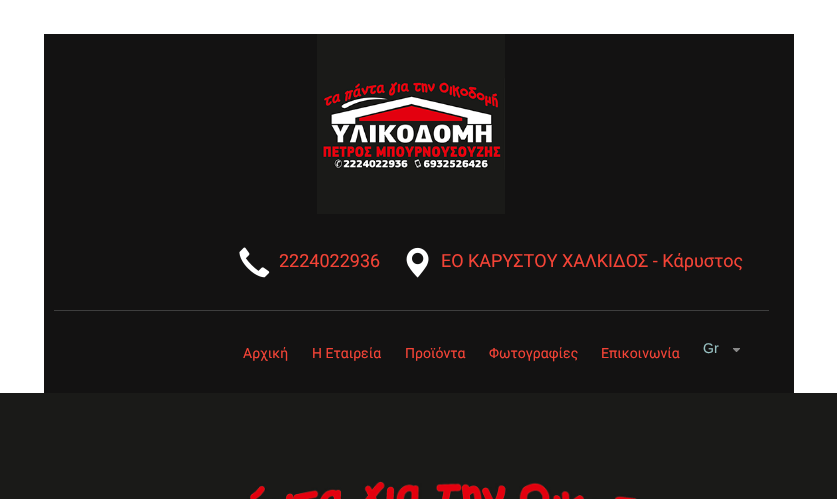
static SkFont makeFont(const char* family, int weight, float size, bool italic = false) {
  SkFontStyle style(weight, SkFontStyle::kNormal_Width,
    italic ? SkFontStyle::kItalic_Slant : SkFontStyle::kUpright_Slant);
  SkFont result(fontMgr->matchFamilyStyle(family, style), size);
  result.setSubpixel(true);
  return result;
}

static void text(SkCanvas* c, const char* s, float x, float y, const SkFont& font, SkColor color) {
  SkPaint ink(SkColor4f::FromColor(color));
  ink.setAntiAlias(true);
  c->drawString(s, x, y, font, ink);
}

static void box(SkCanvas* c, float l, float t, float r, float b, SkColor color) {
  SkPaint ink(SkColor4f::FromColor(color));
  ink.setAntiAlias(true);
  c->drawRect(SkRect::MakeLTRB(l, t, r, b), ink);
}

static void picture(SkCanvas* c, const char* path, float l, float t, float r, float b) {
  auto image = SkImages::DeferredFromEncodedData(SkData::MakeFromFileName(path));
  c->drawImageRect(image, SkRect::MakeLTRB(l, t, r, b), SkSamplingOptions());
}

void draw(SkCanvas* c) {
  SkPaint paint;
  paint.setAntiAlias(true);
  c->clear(0xffffffff);
  box(c, 44, 34, 794, 393, 0xff131212);
  picture(c, "img_01.png", 317, 34, 505, 214);
  picture(c, "img_02.png", 239, 247, 270, 278);
  SkFont face1 = makeFont("Roboto", 400, 18);
  text(c, "2224022936", 279, 267, face1, 0xfff44336);
  picture(c, "img_03.png", 406, 247, 429, 278);
  text(c, "ΕΟ ΚΑΡΥΣΤΟΥ ΧΑΛΚΙΔΟΣ - Κάρυστος", 441, 267, face1, 0xfff44336);
  box(c, 54, 310, 769, 311, 0xff3e3e3e);
  SkFont face2 = makeFont("Roboto", 400, 14);
  text(c, "Αρχική", 243, 358, face2, 0xfff44336);
  text(c, "Η Εταιρεία", 312, 358, face2, 0xfff44336);
  text(c, "Προϊόντα", 405, 358, face2, 0xfff44336);
  text(c, "Φωτογραφίες", 489, 358, face2, 0xfff44336);
  text(c, "Επικοινωνία", 601, 358, face2, 0xfff44336);
  SkFont face3 = makeFont("Liberation Sans", 400, 14);
  text(c, "Gr", 703, 353, face3, 0xff97c0c1);
  picture(c, "img_04.png", 733, 348, 740, 352);
  picture(c, "img_05.png", 0, 393, 837, 499);
}
